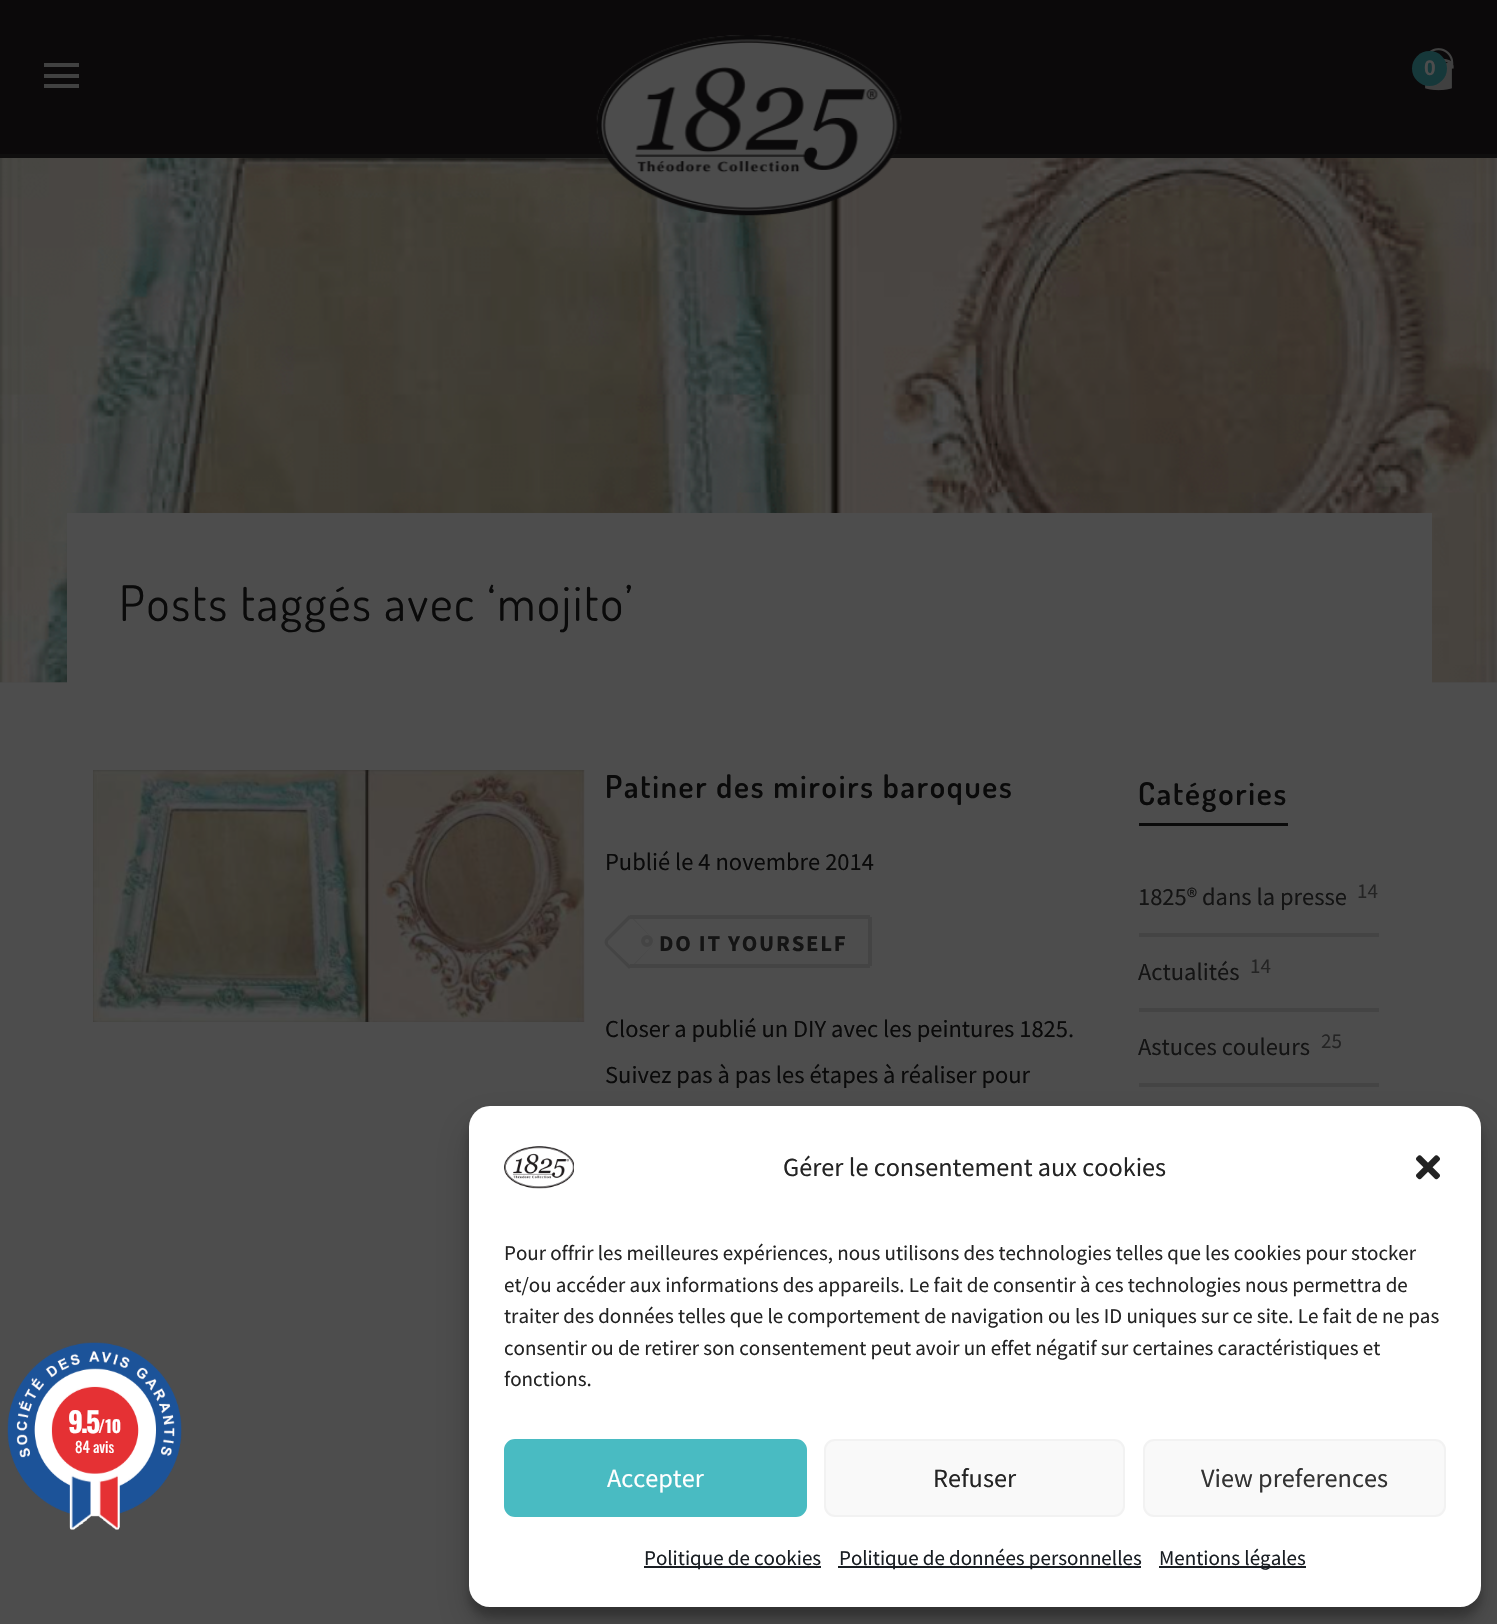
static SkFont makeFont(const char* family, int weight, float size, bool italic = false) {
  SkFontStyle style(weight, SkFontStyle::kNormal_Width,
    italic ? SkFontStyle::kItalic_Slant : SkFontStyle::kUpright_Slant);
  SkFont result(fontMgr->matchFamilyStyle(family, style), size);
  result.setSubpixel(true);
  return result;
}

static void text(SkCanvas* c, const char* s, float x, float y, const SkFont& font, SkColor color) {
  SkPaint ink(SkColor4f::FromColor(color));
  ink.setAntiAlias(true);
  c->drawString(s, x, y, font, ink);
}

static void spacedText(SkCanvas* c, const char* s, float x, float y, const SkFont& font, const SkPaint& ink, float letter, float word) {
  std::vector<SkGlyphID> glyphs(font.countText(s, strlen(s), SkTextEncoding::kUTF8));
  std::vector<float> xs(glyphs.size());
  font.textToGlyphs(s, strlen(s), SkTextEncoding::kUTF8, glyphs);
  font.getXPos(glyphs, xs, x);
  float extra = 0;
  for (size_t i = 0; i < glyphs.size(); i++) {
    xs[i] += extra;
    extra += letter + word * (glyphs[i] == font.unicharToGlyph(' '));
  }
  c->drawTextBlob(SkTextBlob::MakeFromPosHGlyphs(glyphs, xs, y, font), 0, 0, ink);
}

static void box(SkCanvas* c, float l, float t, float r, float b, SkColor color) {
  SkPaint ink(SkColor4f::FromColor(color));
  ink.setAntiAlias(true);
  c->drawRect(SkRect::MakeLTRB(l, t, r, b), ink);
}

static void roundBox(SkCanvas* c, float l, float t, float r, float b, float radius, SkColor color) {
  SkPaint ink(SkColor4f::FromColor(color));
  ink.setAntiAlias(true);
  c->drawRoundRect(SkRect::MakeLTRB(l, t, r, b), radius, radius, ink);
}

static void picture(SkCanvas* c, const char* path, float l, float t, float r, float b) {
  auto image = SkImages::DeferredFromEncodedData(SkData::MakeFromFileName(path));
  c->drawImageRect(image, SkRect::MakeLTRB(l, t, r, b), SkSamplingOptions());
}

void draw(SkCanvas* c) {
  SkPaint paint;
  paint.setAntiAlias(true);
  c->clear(0xff4d4d4d);
  box(c, 0, 0, 1497, 154, 0xff0b090a);
  box(c, 0, 154, 1497, 158, 0xff0f0e0e);
  box(c, 44, 74, 79, 78, 0xff414141);
  box(c, 44, 63, 79, 67, 0xff414141);
  box(c, 44, 84, 79, 88, 0xff414141);
  box(c, 0, 682, 1497, 683, 0xff4a4a4a);
  picture(c, "img_03.png", 0, 158, 1497, 683);
  picture(c, "img_01.png", 596, 35, 902, 216);
  picture(c, "img_02.png", 1425, 48, 1454, 91);
  paint.setColor(0xff16383a);
  c->drawCircle(1429.5f, 68.5f, 17.5f, paint);
  SkFont face1 = makeFont("Liberation Sans", 700, 21);
  text(c, "0", 1424, 75, face1, 0xff4d4d4d);
  box(c, 67, 513, 1432, 683, 0xff4d4d4d);
  SkFont face2 = makeFont("Dosis", 400, 49);
  paint.setColor(0xff0a0a0a);
  spacedText(c, "Posts taggés avec ‘mojito’", 119, 621, face2, paint, 1.75f, 0);
  picture(c, "img_04.png", 93, 770, 585, 1022);
  SkFont face3 = makeFont("Dosis", 600, 31.5f);
  spacedText(c, "Patiner des miroirs baroques", 605, 798, face3, paint, 1.75f, 0);
  SkFont face4 = makeFont("Source Sans Pro", 400, 24.5f);
  text(c, "Publié le 4 novembre 2014", 605, 870, face4, 0xff0a0a0a);
  box(c, 630, 915, 870, 919, 0xff444444);
  box(c, 868, 917, 872, 966, 0xff444444);
  box(c, 630, 964, 870, 968, 0xff444444);
  paint.setColor(0xff444444);
  c->drawPath(SkPathBuilder(SkPathFillType::kEvenOdd).moveTo(629, 915).lineTo(656, 942).lineTo(629, 969).lineTo(606, 946).cubicTo(604, 944, 604, 940, 606, 938).close().moveTo(632, 917).lineTo(656, 942).lineTo(632, 967).lineTo(608, 944).cubicTo(608, 943, 608, 942, 608, 941).close().detach(), paint);
  paint.setStyle(SkPaint::kStroke_Style);
  paint.setStrokeWidth(4);
  c->drawCircle(647, 941, 4, paint);
  SkFont face5 = makeFont("Source Sans Pro", 700, 22.75f);
  paint.setStyle(SkPaint::kFill_Style);
  paint.setColor(0xff141414);
  spacedText(c, "DO IT YOURSELF", 659, 951, face5, paint, 1.75f, 0);
  text(c, "Closer a publié un DIY avec les peintures 1825.", 605, 1037, face4, 0xff0a0a0a);
  text(c, "Suivez pas à pas les étapes à réaliser pour", 605, 1083, face4, 0xff0a0a0a);
  box(c, 1139, 823, 1288, 826, 0xff0a0a0a);
  paint.setColor(0xff0a0a0a);
  spacedText(c, "Catégories", 1138, 805, face3, paint, 1.75f, 0);
  text(c, "1825® dans la presse", 1138, 905, face4, 0xff141414);
  SkFont face6 = makeFont("Source Sans Pro", 400, 21);
  text(c, "14", 1357, 898, face6, 0xff242424);
  box(c, 1139, 933, 1379, 937, 0xff444444);
  text(c, "Actualités", 1138, 980, face4, 0xff141414);
  text(c, "14", 1250, 973, face6, 0xff242424);
  box(c, 1139, 1008, 1379, 1012, 0xff444444);
  text(c, "Astuces couleurs", 1138, 1055, face4, 0xff141414);
  text(c, "25", 1321, 1048, face6, 0xff242424);
  box(c, 1139, 1083, 1379, 1087, 0xff444444);
  picture(c, "img_05.png", 7, 1342, 182, 1530);
  SkFont face7 = makeFont("Oswald", 700, 28);
  paint.setColor(0xffffffff);
  spacedText(c, "9.5", 68, 1433, face7, paint, -2, 0);
  SkFont face8 = makeFont("Oswald", 700, 17);
  text(c, "/10", 98, 1433, face8, 0xffffffff);
  SkFont face9 = makeFont("Oswald", 400, 15);
  text(c, "84 avis", 75, 1453, face9, 0xffffffff);
  paint.setColor(0x3b000000);
  paint.setMaskFilter(SkMaskFilter::MakeBlur(kNormal_SkBlurStyle, 5));
  c->drawRoundRect(SkRect::MakeLTRB(469, 1117, 1481, 1617), 21, 21, paint);
  paint.setMaskFilter(nullptr);
  paint.setColor(0x30000000);
  paint.setMaskFilter(SkMaskFilter::MakeBlur(kNormal_SkBlurStyle, 17.5f));
  c->drawRoundRect(SkRect::MakeLTRB(469, 1124, 1481, 1624), 21, 21, paint);
  paint.setMaskFilter(nullptr);
  roundBox(c, 469, 1106, 1481, 1607, 21, 0xffffffff);
  picture(c, "img_06.png", 504, 1146, 574, 1189);
  SkFont face10 = makeFont("Source Sans Pro", 400, 26.25f);
  text(c, "Gérer le consentement aux cookies", 783, 1176, face10, 0xff242424);
  picture(c, "img_07.png", 1416, 1155, 1440, 1180);
  text(c, "Pour offrir les meilleures expériences, nous utilisons des technologies telles que les cookies pour stocker", 504, 1260, face6, 0xff242424);
  text(c, "et/ou accéder aux informations des appareils. Le fait de consentir à ces technologies nous permettra de", 504, 1292, face6, 0xff242424);
  text(c, "traiter des données telles que le comportement de navigation ou les ID uniques sur ce site. Le fait de ne pas", 504, 1323, face6, 0xff242424);
  text(c, "consentir ou de retirer son consentement peut avoir un effet négatif sur certaines caractéristiques et", 504, 1355, face6, 0xff242424);
  text(c, "fonctions.", 504, 1386, face6, 0xff242424);
  paint.setColor(0xff49bbc2);
  c->drawRoundRect(SkRect::MakeLTRB(505, 1440, 806, 1516), 10, 10, paint);
  paint.setStyle(SkPaint::kStroke_Style);
  paint.setStrokeWidth(2);
  c->drawRoundRect(SkRect::MakeLTRB(505, 1440, 806, 1516), 10, 10, paint);
  text(c, "Accepter", 607, 1487, face10, 0xffffffff);
  paint.setStyle(SkPaint::kFill_Style);
  paint.setColor(0xfff9f9f9);
  c->drawRoundRect(SkRect::MakeLTRB(825, 1440, 1124, 1516), 10, 10, paint);
  paint.setStyle(SkPaint::kStroke_Style);
  paint.setColor(0xfff2f2f2);
  c->drawRoundRect(SkRect::MakeLTRB(825, 1440, 1124, 1516), 10, 10, paint);
  text(c, "Refuser", 933, 1487, face10, 0xff242424);
  paint.setStyle(SkPaint::kFill_Style);
  paint.setColor(0xfff9f9f9);
  c->drawRoundRect(SkRect::MakeLTRB(1144, 1440, 1445, 1516), 10, 10, paint);
  paint.setStyle(SkPaint::kStroke_Style);
  paint.setColor(0xfff2f2f2);
  c->drawRoundRect(SkRect::MakeLTRB(1144, 1440, 1445, 1516), 10, 10, paint);
  text(c, "View preferences", 1201, 1487, face10, 0xff333333);
  box(c, 644, 1566, 821, 1568, 0xff191e23);
  text(c, "Politique de cookies", 644, 1565, face6, 0xff191e23);
  box(c, 838, 1566, 1141, 1568, 0xff191e23);
  text(c, "Politique de données personnelles", 839, 1565, face6, 0xff191e23);
  box(c, 1159, 1566, 1306, 1568, 0xff191e23);
  text(c, "Mentions légales", 1159, 1565, face6, 0xff191e23);
}
